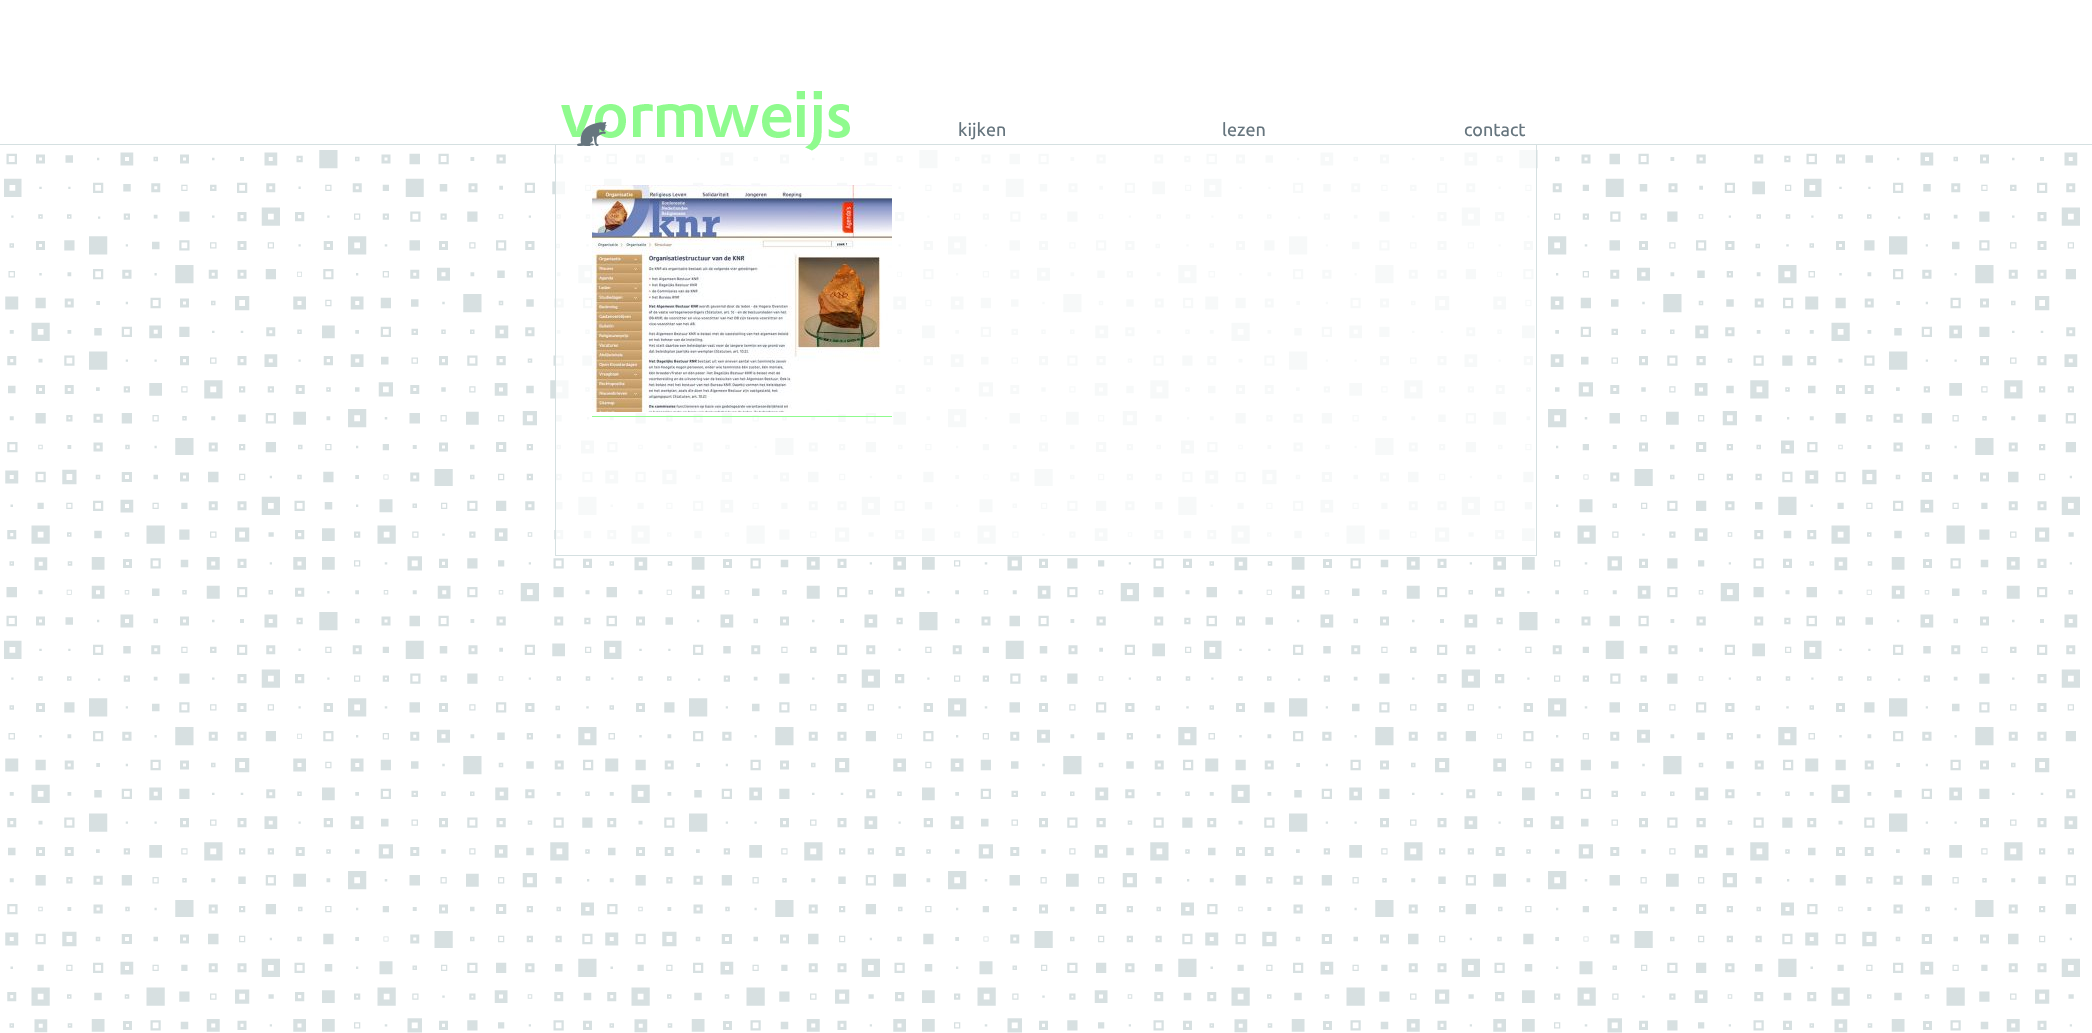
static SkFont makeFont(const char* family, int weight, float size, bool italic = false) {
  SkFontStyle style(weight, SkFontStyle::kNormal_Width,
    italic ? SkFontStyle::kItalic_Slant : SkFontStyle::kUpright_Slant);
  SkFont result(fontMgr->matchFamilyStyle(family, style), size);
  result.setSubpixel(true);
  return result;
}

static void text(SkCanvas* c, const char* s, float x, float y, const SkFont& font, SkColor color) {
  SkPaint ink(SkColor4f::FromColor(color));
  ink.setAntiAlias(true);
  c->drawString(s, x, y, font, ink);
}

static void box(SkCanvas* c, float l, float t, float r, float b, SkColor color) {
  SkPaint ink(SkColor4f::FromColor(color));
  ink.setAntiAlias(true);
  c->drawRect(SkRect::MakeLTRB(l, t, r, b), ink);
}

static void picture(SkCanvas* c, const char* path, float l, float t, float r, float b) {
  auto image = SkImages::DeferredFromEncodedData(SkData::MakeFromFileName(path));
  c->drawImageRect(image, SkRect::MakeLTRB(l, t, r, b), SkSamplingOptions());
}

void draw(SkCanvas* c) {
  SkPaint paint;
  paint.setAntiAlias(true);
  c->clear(0xffffffff);
  picture(c, "img_01.png", 4, 150, 2080, 1033);
  box(c, 556, 150, 1536, 544, 0xccffffff);
  paint.setStyle(SkPaint::kStroke_Style);
  paint.setStrokeWidth(1);
  paint.setColor(0xffd5e0e1);
  c->drawRect(SkRect::MakeLTRB(555.5f, 144.5f, 1536.5f, 555.5f), paint);
  box(c, 0, 144, 2092, 145, 0xffd5e0e1);
  picture(c, "img_02.png", 561, 91, 850, 151);
  SkFont face1 = makeFont("Ubuntu", 400, 18);
  text(c, "kijken", 958, 136, face1, 0xff66757e);
  text(c, "lezen", 1222, 136, face1, 0xff66757e);
  text(c, "contact", 1464, 136, face1, 0xff66757e);
  picture(c, "img_03.png", 592, 185, 892, 412);
  box(c, 592, 416, 892, 417, 0xff8ffb8e);
}
